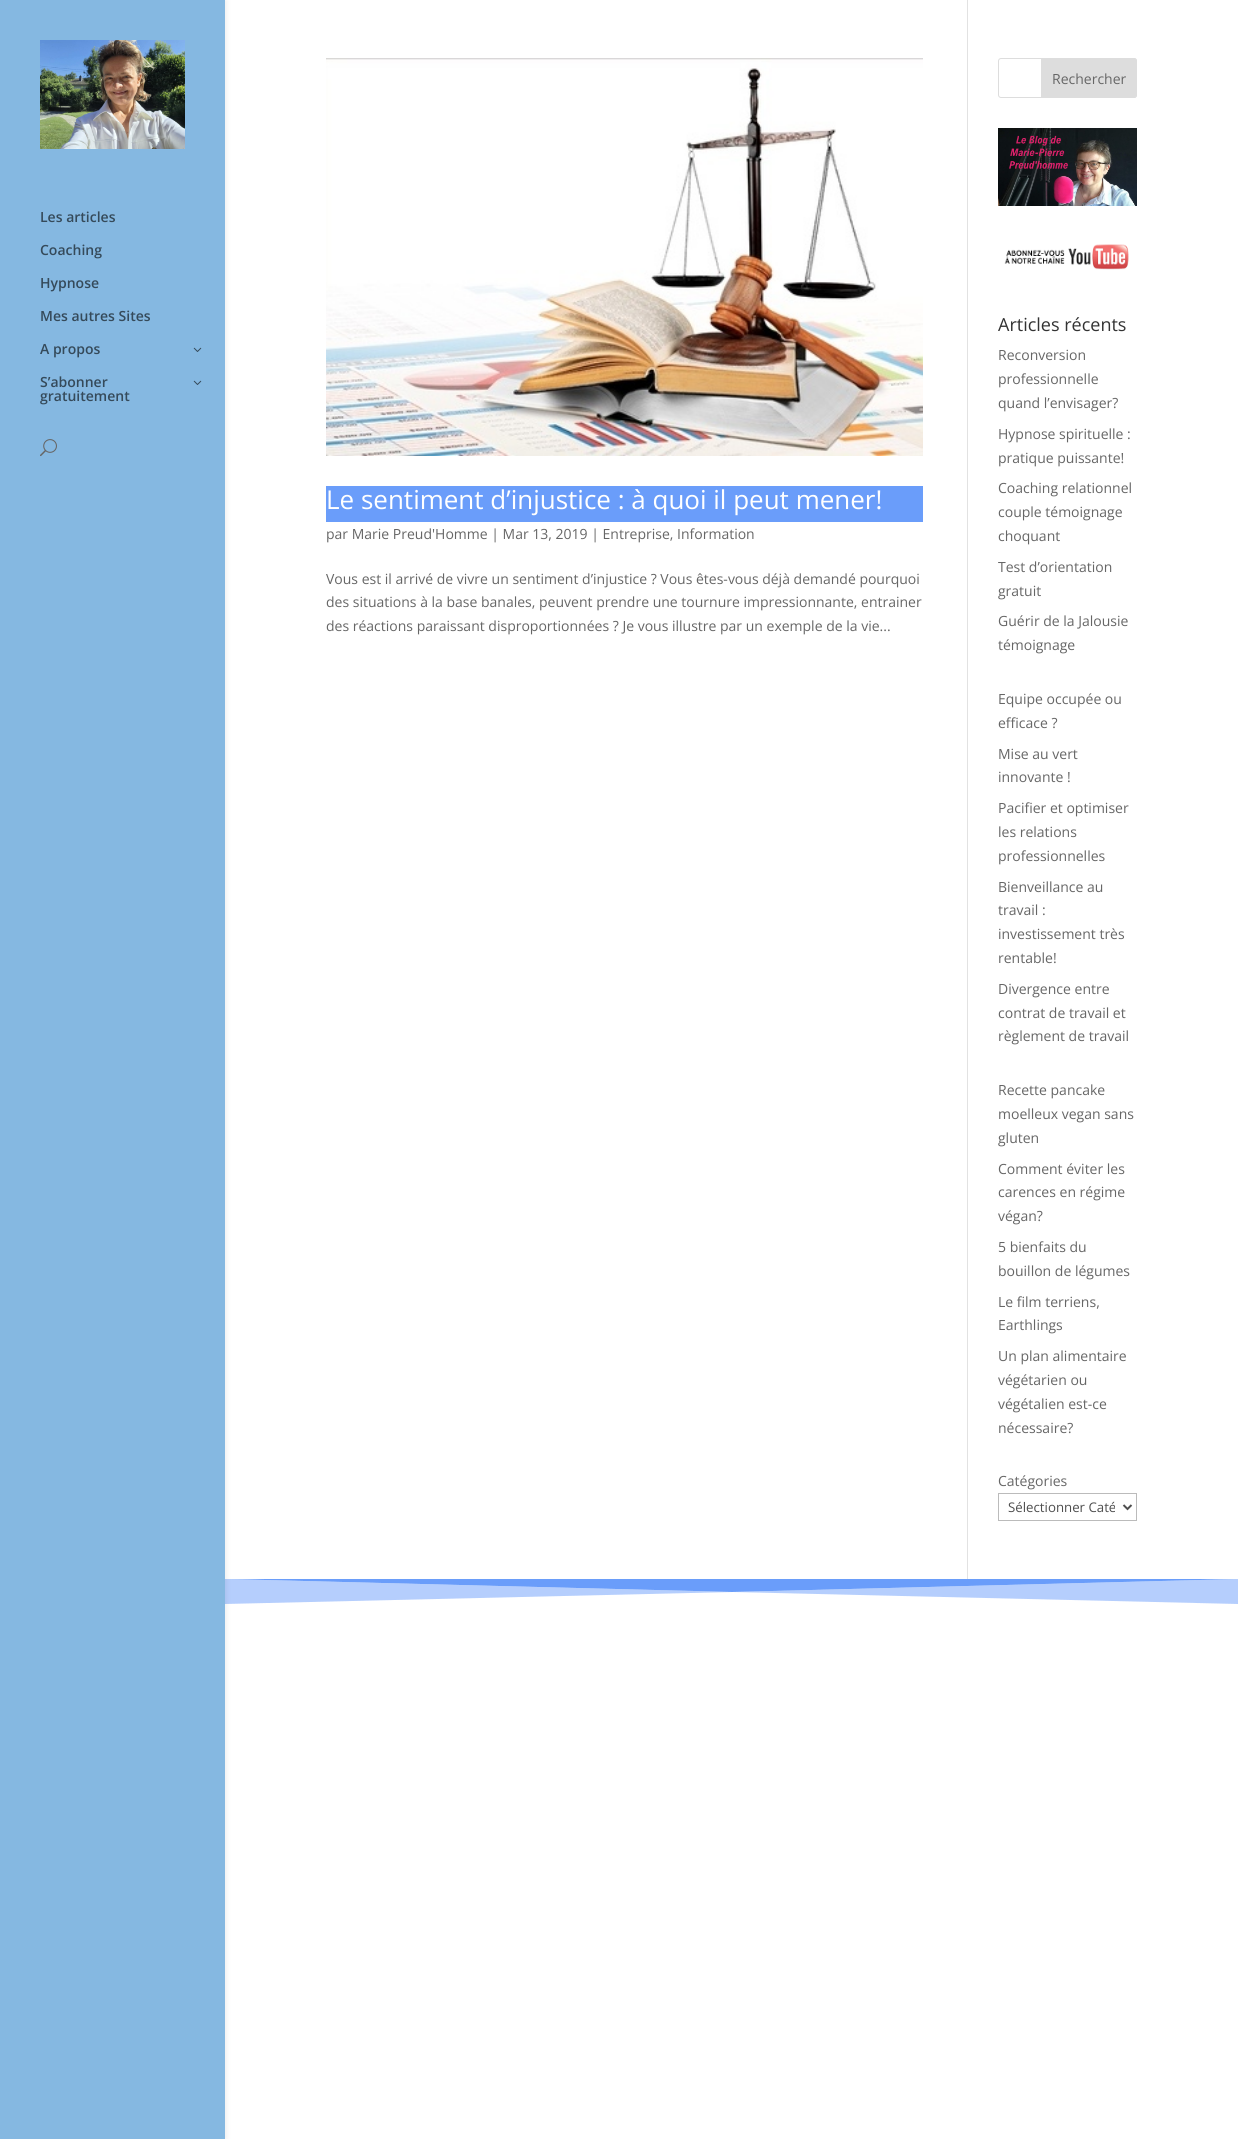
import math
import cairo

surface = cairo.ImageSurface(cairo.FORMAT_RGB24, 1238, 2139)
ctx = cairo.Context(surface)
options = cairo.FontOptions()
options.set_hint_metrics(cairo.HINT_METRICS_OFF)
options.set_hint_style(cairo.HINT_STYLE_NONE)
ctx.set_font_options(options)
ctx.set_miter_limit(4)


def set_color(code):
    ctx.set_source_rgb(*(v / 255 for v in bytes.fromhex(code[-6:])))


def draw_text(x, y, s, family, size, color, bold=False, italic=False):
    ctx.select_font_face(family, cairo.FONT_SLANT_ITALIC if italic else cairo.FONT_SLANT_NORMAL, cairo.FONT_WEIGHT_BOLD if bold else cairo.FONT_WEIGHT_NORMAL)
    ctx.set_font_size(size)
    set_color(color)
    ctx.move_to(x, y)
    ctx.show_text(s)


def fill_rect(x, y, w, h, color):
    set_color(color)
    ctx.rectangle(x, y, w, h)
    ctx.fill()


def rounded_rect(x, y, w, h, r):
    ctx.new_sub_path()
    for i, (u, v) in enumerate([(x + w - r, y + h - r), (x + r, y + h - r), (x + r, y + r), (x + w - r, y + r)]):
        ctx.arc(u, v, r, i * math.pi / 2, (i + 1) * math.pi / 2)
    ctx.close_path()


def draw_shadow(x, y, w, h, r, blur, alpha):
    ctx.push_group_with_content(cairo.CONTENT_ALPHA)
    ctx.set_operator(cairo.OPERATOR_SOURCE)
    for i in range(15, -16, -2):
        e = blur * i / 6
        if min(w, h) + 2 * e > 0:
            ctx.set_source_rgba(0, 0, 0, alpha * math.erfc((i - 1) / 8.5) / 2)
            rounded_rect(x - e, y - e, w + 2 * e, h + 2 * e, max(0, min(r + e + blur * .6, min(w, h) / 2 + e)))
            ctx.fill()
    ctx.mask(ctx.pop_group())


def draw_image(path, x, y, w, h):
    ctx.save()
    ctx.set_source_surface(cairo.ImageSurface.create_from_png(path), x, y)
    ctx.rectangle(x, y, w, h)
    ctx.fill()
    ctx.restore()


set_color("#ffffff")
ctx.paint()
set_color("#b5cefd")
ctx.new_path()
ctx.move_to(225, 1579)
ctx.line_to(732, 1592)
ctx.line_to(1238, 1579)
ctx.line_to(1238, 1604)
ctx.line_to(732, 1592)
ctx.line_to(225, 1604)
ctx.close_path()
ctx.fill()
set_color("#6a9dfa")
ctx.new_path()
ctx.move_to(225, 1579)
ctx.line_to(1238, 1579)
ctx.line_to(732, 1592)
ctx.close_path()
ctx.fill()
set_color("#000000")
draw_shadow(0, 0, 225, 2139, 0, 3.5, 0.1)
fill_rect(0, 0, 225, 2139, "#85b8e1")
draw_image("assets/img1.png", 40, 40, 145, 109)
draw_text(40, 222, "Les articles", "Open Sans SemiBold", 14, "#354a5a")
draw_text(40, 255, "Coaching", "Open Sans SemiBold", 14, "#354a5a")
draw_text(40, 288, "Hypnose", "Open Sans SemiBold", 14, "#354a5a")
draw_text(40, 321, "Mes autres Sites", "Open Sans SemiBold", 14, "#354a5a")
draw_text(40, 354, "A propos", "Open Sans SemiBold", 14, "#354a5a")
draw_image("assets/img2.png", 193, 347, 9, 5)
draw_text(40, 387, "S’abonner", "Open Sans SemiBold", 14, "#354a5a")
draw_image("assets/img2.png", 193, 380, 9, 5)
draw_text(40, 401, "gratuitement", "Open Sans SemiBold", 14, "#354a5a")
draw_image("assets/img3.png", 40, 439, 17, 18)
fill_rect(967, 0, 1, 1579, "#e2e2e2")
draw_image("assets/img4.png", 326, 58, 597, 398)
fill_rect(326, 486, 597, 36, "#6a9dfa")
draw_text(326, 509, "Le sentiment d’injustice : à quoi il peut mener!", "Open Sans", 26, "#ffffff")
draw_text(326, 539, "par Marie Preud'Homme | Mar 13, 2019 | Entreprise, Information", "Open Sans", 14, "#666666")
draw_text(326, 584, "Vous est il arrivé de vivre un sentiment d’injustice ? Vous êtes-vous déjà demandé pourquoi", "Open Sans", 14, "#666666")
draw_text(326, 607, "des situations à la base banales, peuvent prendre une tournure impressionnante, entrainer", "Open Sans", 14, "#666666")
draw_text(326, 631, "des réactions paraissant disproportionnées ? Je vous illustre par un exemple de la vie...", "Open Sans", 14, "#666666")
rounded_rect(998.5, 58.5, 138, 39, 2.5)
set_color("#dddddd")
ctx.set_line_width(1)
ctx.stroke()
ctx.new_path()
ctx.move_to(1041.5, 58.5)
ctx.line_to(1134, 58.5)
ctx.curve_to(1135.5, 58.5, 1136.5, 59.5, 1136.5, 61)
ctx.line_to(1136.5, 95)
ctx.curve_to(1136.5, 96.5, 1135.5, 97.5, 1134, 97.5)
ctx.line_to(1041.5, 97.5)
ctx.close_path()
ctx.fill_preserve()
ctx.stroke()
draw_text(1052, 84, "Rechercher", "Open Sans", 14, "#666666")
draw_image("assets/img5.png", 998, 128, 139, 78)
draw_image("assets/img6.png", 1004, 244, 125, 26)
draw_text(998, 331, "Articles récents", "Open Sans", 18, "#333333")
draw_text(998, 360, "Reconversion", "Open Sans", 14, "#666666")
draw_text(998, 384, "professionnelle", "Open Sans", 14, "#666666")
draw_text(998, 408, "quand l’envisager?", "Open Sans", 14, "#666666")
draw_text(998, 439, "Hypnose spirituelle :", "Open Sans", 14, "#666666")
draw_text(998, 463, "pratique puissante!", "Open Sans", 14, "#666666")
draw_text(998, 493, "Coaching relationnel", "Open Sans", 14, "#666666")
draw_text(998, 517, "couple témoignage", "Open Sans", 14, "#666666")
draw_text(998, 541, "choquant", "Open Sans", 14, "#666666")
draw_text(998, 572, "Test d’orientation", "Open Sans", 14, "#666666")
draw_text(998, 596, "gratuit", "Open Sans", 14, "#666666")
draw_text(998, 626, "Guérir de la Jalousie", "Open Sans", 14, "#666666")
draw_text(998, 650, "témoignage", "Open Sans", 14, "#666666")
draw_text(998, 704, "Equipe occupée ou", "Open Sans", 14, "#666666")
draw_text(998, 728, "efficace ?", "Open Sans", 14, "#666666")
draw_text(998, 759, "Mise au vert", "Open Sans", 14, "#666666")
draw_text(998, 782, "innovante !", "Open Sans", 14, "#666666")
draw_text(998, 813, "Pacifier et optimiser", "Open Sans", 14, "#666666")
draw_text(998, 837, "les relations", "Open Sans", 14, "#666666")
draw_text(998, 861, "professionnelles", "Open Sans", 14, "#666666")
draw_text(998, 892, "Bienveillance au", "Open Sans", 14, "#666666")
draw_text(998, 915, "travail :", "Open Sans", 14, "#666666")
draw_text(998, 939, "investissement très", "Open Sans", 14, "#666666")
draw_text(998, 963, "rentable!", "Open Sans", 14, "#666666")
draw_text(998, 994, "Divergence entre", "Open Sans", 14, "#666666")
draw_text(998, 1018, "contrat de travail et", "Open Sans", 14, "#666666")
draw_text(998, 1041, "règlement de travail", "Open Sans", 14, "#666666")
draw_text(998, 1095, "Recette pancake", "Open Sans", 14, "#666666")
draw_text(998, 1119, "moelleux vegan sans", "Open Sans", 14, "#666666")
draw_text(998, 1143, "gluten", "Open Sans", 14, "#666666")
draw_text(998, 1174, "Comment éviter les", "Open Sans", 14, "#666666")
draw_text(998, 1197, "carences en régime", "Open Sans", 14, "#666666")
draw_text(998, 1221, "végan?", "Open Sans", 14, "#666666")
draw_text(998, 1252, "5 bienfaits du", "Open Sans", 14, "#666666")
draw_text(998, 1276, "bouillon de légumes", "Open Sans", 14, "#666666")
draw_text(998, 1307, "Le film terriens,", "Open Sans", 14, "#666666")
draw_text(998, 1330, "Earthlings", "Open Sans", 14, "#666666")
draw_text(998, 1361, "Un plan alimentaire", "Open Sans", 14, "#666666")
draw_text(998, 1385, "végétarien ou", "Open Sans", 14, "#666666")
draw_text(998, 1409, "végétalien est-ce", "Open Sans", 14, "#666666")
draw_text(998, 1433, "nécessaire?", "Open Sans", 14, "#666666")
draw_text(998, 1486, "Catégories", "Open Sans", 14, "#666666")
ctx.rectangle(998.5, 1493.5, 138, 27)
set_color("#bbbbbb")
ctx.stroke()
ctx.new_path()
ctx.move_to(1123.5, 1505)
ctx.line_to(1127.5, 1509)
ctx.line_to(1131.5, 1505)
set_color("#4e4e4e")
ctx.set_line_width(2)
ctx.stroke()
ctx.save()
ctx.rectangle(1008, 1497, 107, 20)
ctx.clip()
draw_text(1008, 1512, "Sélectionner Caté", "Open Sans", 13.25, "#4e4e4e")
ctx.restore()
surface.write_to_png("output.png")
